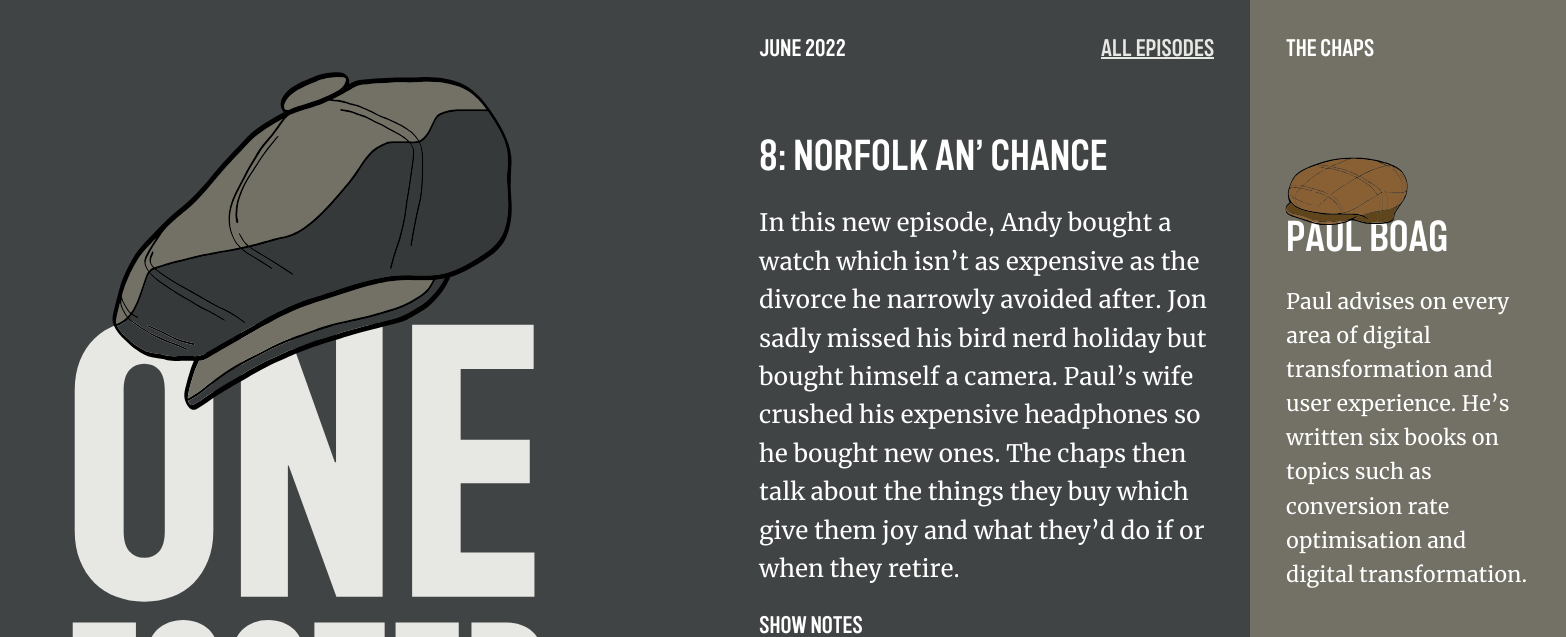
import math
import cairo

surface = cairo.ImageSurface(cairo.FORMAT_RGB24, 1566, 637)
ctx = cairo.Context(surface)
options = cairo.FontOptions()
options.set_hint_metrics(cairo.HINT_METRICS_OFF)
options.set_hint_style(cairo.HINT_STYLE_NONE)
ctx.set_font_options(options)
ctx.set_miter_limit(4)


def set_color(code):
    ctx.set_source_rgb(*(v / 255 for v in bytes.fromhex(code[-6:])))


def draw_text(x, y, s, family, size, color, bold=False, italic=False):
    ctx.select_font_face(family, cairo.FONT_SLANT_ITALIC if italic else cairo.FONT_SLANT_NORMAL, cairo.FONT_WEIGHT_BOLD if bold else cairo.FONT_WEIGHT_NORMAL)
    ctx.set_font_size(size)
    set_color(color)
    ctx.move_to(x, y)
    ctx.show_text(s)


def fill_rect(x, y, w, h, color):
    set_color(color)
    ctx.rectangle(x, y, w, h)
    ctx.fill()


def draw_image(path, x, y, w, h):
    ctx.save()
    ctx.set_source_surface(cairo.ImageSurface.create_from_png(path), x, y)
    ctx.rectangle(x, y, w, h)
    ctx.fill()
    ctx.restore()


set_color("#414445")
ctx.paint()
draw_image("assets/img1.png", 72, 72, 465, 565)
draw_text(759, 56, "JUNE 2022", "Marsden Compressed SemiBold", 24, "#ffffff")
draw_text(1101, 56, "ALL EPISODES", "Marsden Compressed SemiBold", 24, "#e7e7e4")
fill_rect(1101, 57, 113, 2, "#e7e7e4")
draw_text(759, 170, "8: NORFOLK AN’ CHANCE", "Marsden Compressed SemiBold", 43.25, "#ffffff")
draw_text(759, 231, "In this new episode, Andy bought a", "Merriweather", 24, "#ffffff")
draw_text(759, 270, "watch which isn’t as expensive as the", "Merriweather", 24, "#ffffff")
draw_text(759, 308, "divorce he narrowly avoided after. Jon", "Merriweather", 24, "#ffffff")
draw_text(759, 347, "sadly missed his bird nerd holiday but", "Merriweather", 24, "#ffffff")
draw_text(759, 385, "bought himself a camera. Paul’s wife", "Merriweather", 24, "#ffffff")
draw_text(759, 423, "crushed his expensive headphones so", "Merriweather", 24, "#ffffff")
draw_text(759, 462, "he bought new ones. The chaps then", "Merriweather", 24, "#ffffff")
draw_text(759, 500, "talk about the things they buy which", "Merriweather", 24, "#ffffff")
draw_text(759, 539, "give them joy and what they’d do if or", "Merriweather", 24, "#ffffff")
draw_text(759, 577, "when they retire.", "Merriweather", 24, "#ffffff")
draw_text(759, 633, "SHOW NOTES", "Marsden Compressed SemiBold", 24, "#ffffff")
fill_rect(1250, 0, 316, 637, "#737166")
draw_text(1286, 56, "THE CHAPS", "Marsden Compressed SemiBold", 24, "#ffffff")
draw_text(1286, 251, "PAUL BOAG", "Marsden Compressed SemiBold", 43.25, "#ffffff")
draw_image("assets/img2.png", 1285, 157, 123, 68)
draw_text(1286, 309, "Paul advises on every", "Merriweather", 21.3, "#ffffff")
draw_text(1286, 343, "area of digital", "Merriweather", 21.3, "#ffffff")
draw_text(1286, 377, "transformation and", "Merriweather", 21.3, "#ffffff")
draw_text(1286, 411, "user experience. He’s", "Merriweather", 21.3, "#ffffff")
draw_text(1286, 445, "written six books on", "Merriweather", 21.3, "#ffffff")
draw_text(1286, 479, "topics such as", "Merriweather", 21.3, "#ffffff")
draw_text(1286, 514, "conversion rate", "Merriweather", 21.3, "#ffffff")
draw_text(1286, 548, "optimisation and", "Merriweather", 21.3, "#ffffff")
draw_text(1286, 582, "digital transformation.", "Merriweather", 21.3, "#ffffff")
surface.write_to_png("output.png")
